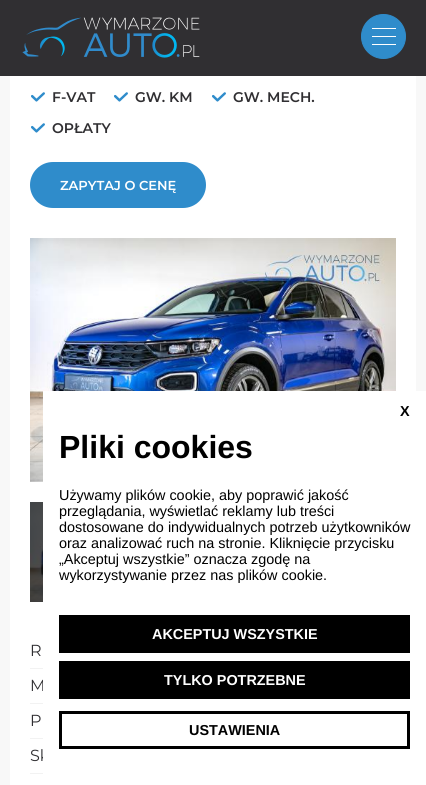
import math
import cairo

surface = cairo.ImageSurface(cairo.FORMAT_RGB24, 426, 785)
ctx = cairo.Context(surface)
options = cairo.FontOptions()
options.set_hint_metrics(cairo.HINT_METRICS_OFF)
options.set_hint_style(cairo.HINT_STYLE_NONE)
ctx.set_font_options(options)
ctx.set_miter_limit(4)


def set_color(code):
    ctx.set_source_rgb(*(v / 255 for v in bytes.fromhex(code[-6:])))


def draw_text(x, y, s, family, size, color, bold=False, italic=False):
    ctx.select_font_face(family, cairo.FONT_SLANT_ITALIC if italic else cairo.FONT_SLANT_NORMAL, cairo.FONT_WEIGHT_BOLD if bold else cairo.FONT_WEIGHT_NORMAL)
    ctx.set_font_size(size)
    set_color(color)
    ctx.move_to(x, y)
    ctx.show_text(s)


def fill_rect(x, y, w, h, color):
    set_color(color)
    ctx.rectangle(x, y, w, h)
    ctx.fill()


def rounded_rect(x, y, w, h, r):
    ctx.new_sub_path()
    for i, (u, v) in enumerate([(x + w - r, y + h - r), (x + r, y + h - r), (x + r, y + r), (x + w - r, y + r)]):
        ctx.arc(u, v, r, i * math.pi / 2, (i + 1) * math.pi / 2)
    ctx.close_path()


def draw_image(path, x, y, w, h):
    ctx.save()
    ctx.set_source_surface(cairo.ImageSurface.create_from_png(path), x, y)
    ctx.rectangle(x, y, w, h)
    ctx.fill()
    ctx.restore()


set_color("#f8f8f8")
ctx.paint()
fill_rect(0, 0, 426, 76, "#302f32")
draw_image("assets/img1.png", 22, 17, 178, 41)
set_color("#2f8ccb")
ctx.arc(383.5, 36.5, 22, 0, 2 * math.pi)
ctx.fill_preserve()
ctx.set_line_width(1)
ctx.stroke()
fill_rect(372, 36, 24, 1, "#ffffff")
fill_rect(372, 28, 24, 1, "#ffffff")
fill_rect(372, 44, 24, 1, "#ffffff")
fill_rect(10, 76, 406, 709, "#ffffff")
draw_image("assets/img2.png", 31, 92, 14, 10)
draw_text(52, 102, "F-VAT", "Montserrat SemiBold", 14, "#302f32")
draw_image("assets/img2.png", 114, 92, 14, 10)
draw_text(135, 102, "GW. KM", "Montserrat SemiBold", 14, "#302f32")
draw_image("assets/img2.png", 212, 92, 14, 10)
draw_text(233, 102, "GW. MECH.", "Montserrat SemiBold", 14, "#302f32")
draw_image("assets/img2.png", 31, 123, 14, 10)
draw_text(52, 133, "OPŁATY", "Montserrat SemiBold", 14, "#302f32")
set_color("#2f8ccb")
rounded_rect(30, 162, 176, 46, 23)
ctx.fill()
draw_text(60, 190, "ZAPYTAJ O CENĘ", "Montserrat SemiBold", 13, "#ffffff")
draw_image("assets/img3.png", 30, 238, 366, 244)
draw_image("assets/img4.png", 30, 502, 13, 100)
ctx.set_source_rgba(0, 0, 0, 0.7)
ctx.rectangle(30, 502, 13, 100)
ctx.fill()
fill_rect(30, 668, 13, 1, "#f2f2f2")
draw_text(30, 656, "R", "Montserrat", 16, "#302f32")
fill_rect(30, 703, 13, 1, "#f2f2f2")
draw_text(30, 691, "M", "Montserrat", 16, "#302f32")
fill_rect(30, 738, 13, 1, "#f2f2f2")
draw_text(30, 726, "P", "Montserrat", 16, "#302f32")
fill_rect(30, 773, 13, 1, "#f2f2f2")
draw_text(30, 761, "Sk", "Montserrat", 16, "#302f32")
fill_rect(43, 391, 383, 394, "#ffffff")
draw_text(400, 416, "X", "Liberation Sans", 14.4, "#000000", bold=True)
draw_text(59, 458, "Pliki cookies", "Liberation Sans", 32, "#000000", bold=True)
draw_text(59, 500, "Używamy plików cookie, aby poprawić jakość", "Liberation Sans", 14.4, "#000000")
draw_text(59, 516, "przeglądania, wyświetlać reklamy lub treści", "Liberation Sans", 14.4, "#000000")
draw_text(59, 532, "dostosowane do indywidualnych potrzeb użytkowników", "Liberation Sans", 14.4, "#000000")
draw_text(59, 548, "oraz analizować ruch na stronie. Kliknięcie przycisku", "Liberation Sans", 14.4, "#000000")
draw_text(59, 564, "„Akceptuj wszystkie” oznacza zgodę na", "Liberation Sans", 14.4, "#000000")
draw_text(59, 580, "wykorzystywanie przez nas plików cookie.", "Liberation Sans", 14.4, "#000000")
fill_rect(59, 615, 351, 38, "#000000")
draw_text(152, 639, "AKCEPTUJ WSZYSTKIE", "Liberation Sans", 14.4, "#ffffff", bold=True)
fill_rect(59, 661, 351, 38, "#000000")
draw_text(164, 685, "TYLKO POTRZEBNE", "Liberation Sans", 14.4, "#ffffff", bold=True)
ctx.rectangle(60.5, 712.5, 348, 35)
set_color("#000000")
ctx.set_line_width(3)
ctx.stroke()
draw_text(189, 735, "USTAWIENIA", "Liberation Sans", 14.4, "#000000", bold=True)
surface.write_to_png("output.png")
